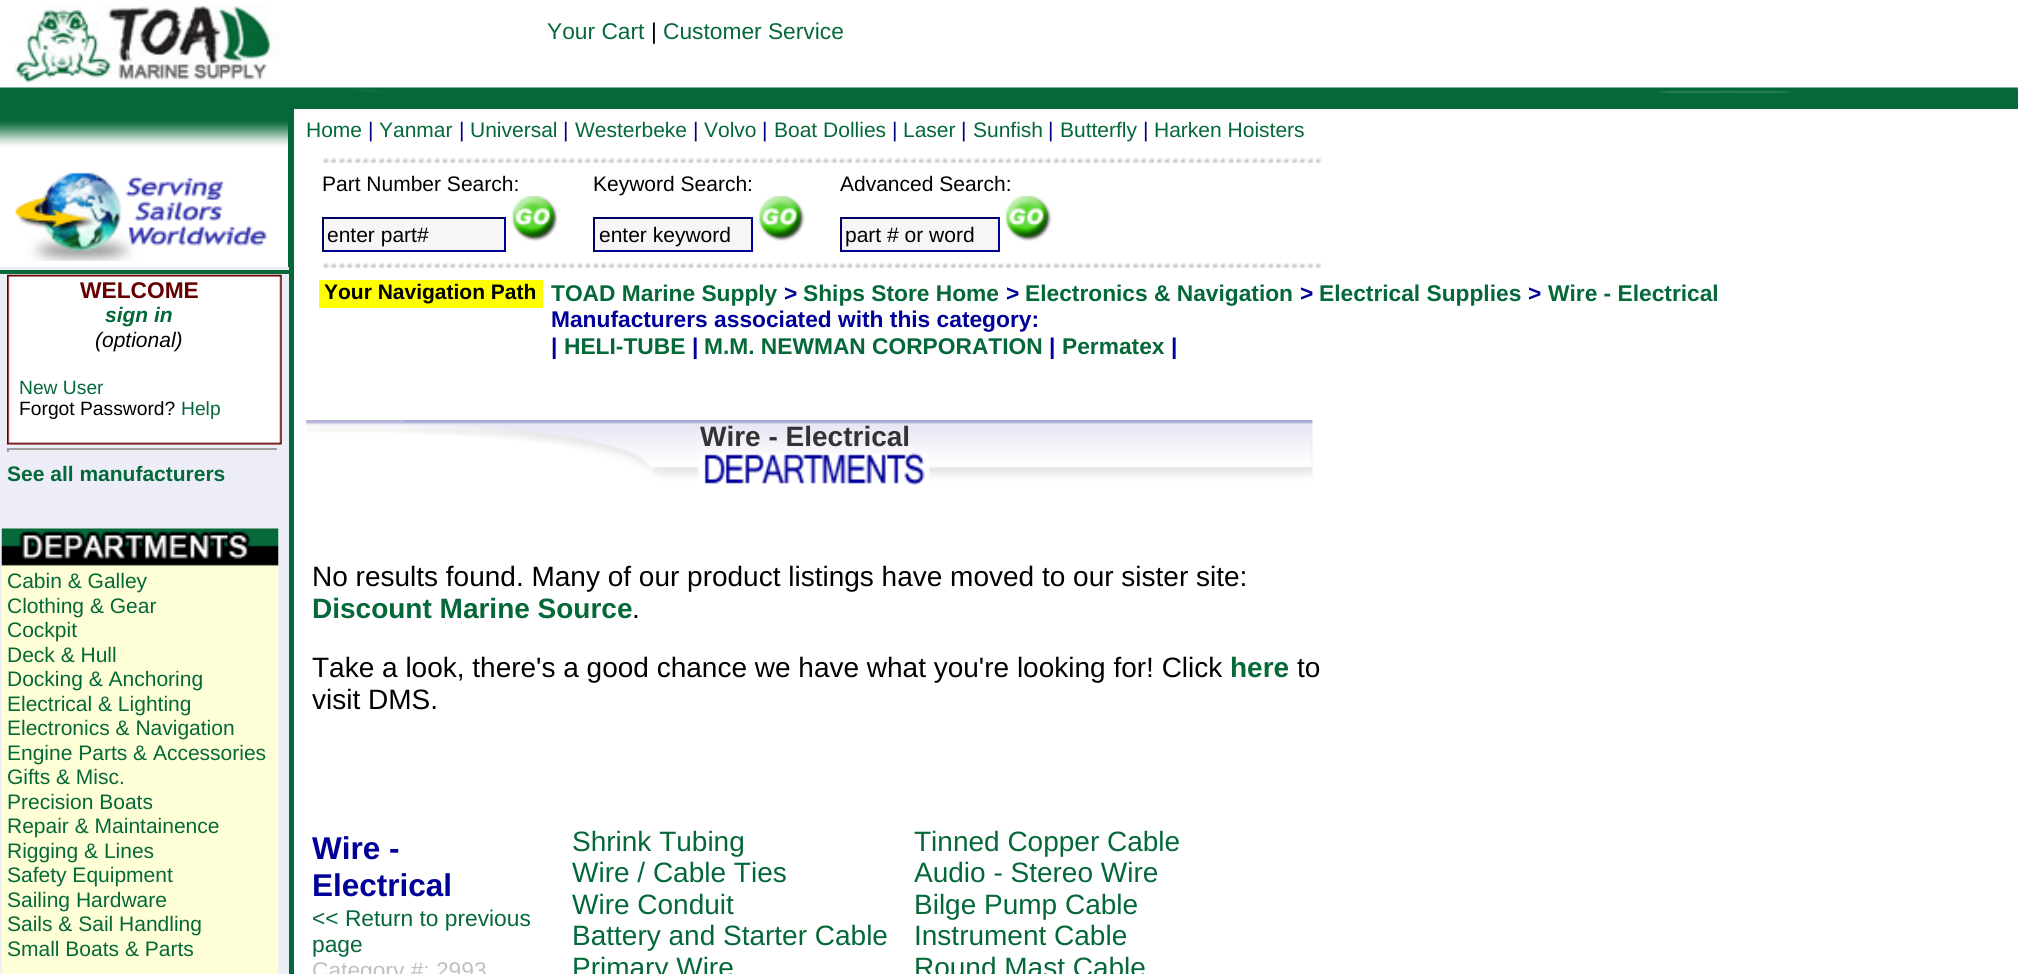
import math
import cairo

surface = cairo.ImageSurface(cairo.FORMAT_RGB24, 2021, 974)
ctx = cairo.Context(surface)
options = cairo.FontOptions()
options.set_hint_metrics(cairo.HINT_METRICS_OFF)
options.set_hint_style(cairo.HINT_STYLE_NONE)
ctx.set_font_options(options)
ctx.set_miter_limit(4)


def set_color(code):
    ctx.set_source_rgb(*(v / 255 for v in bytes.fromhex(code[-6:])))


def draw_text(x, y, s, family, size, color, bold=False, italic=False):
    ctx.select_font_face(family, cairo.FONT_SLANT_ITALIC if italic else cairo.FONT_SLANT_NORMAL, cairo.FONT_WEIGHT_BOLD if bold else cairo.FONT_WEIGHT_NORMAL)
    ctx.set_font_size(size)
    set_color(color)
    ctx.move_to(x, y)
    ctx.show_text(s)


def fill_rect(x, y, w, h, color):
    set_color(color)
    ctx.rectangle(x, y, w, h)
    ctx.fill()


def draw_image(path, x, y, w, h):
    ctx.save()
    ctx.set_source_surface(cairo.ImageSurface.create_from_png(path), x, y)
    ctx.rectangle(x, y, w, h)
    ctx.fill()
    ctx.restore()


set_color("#ffffff")
ctx.paint()
draw_image("assets/img1.png", 14, 5, 266, 78)
draw_text(547, 39, "Your Cart", "Liberation Sans", 22.75, "#056839")
draw_text(651, 39, "|", "Liberation Sans", 22.75, "#000000")
draw_text(663, 39, "Customer Service", "Liberation Sans", 22.75, "#056839")
fill_rect(0, 89, 2018, 20, "#056839")
draw_image("assets/img2.png", 0, 87, 2018, 6)
draw_image("assets/img3.png", 0, 109, 288, 38)
fill_rect(288, 109, 6, 865, "#056839")
draw_text(306, 137, "Home", "Liberation Sans", 21, "#056839")
draw_text(368, 137, "|", "Liberation Sans", 21, "#000080")
draw_text(379, 137, "Yanmar", "Liberation Sans", 21, "#056839")
draw_text(459, 137, "|", "Liberation Sans", 21, "#000080")
draw_text(470, 137, "Universal", "Liberation Sans", 21, "#056839")
draw_text(563, 137, "|", "Liberation Sans", 21, "#000080")
draw_text(575, 137, "Westerbeke", "Liberation Sans", 21, "#056839")
draw_text(693, 137, "|", "Liberation Sans", 21, "#000080")
draw_text(704, 137, "Volvo", "Liberation Sans", 21, "#056839")
draw_text(762, 137, "|", "Liberation Sans", 21, "#000080")
draw_text(774, 137, "Boat Dollies", "Liberation Sans", 21, "#056839")
draw_text(892, 137, "|", "Liberation Sans", 21, "#000080")
draw_text(903, 137, "Laser", "Liberation Sans", 21, "#056839")
draw_text(961, 137, "|", "Liberation Sans", 21, "#000080")
draw_text(973, 137, "Sunfish", "Liberation Sans", 21, "#056839")
draw_text(1048, 137, "|", "Liberation Sans", 21, "#000080")
draw_text(1060, 137, "Butterfly", "Liberation Sans", 21, "#056839")
draw_text(1143, 137, "|", "Liberation Sans", 21, "#000080")
draw_text(1154, 137, "Harken Hoisters", "Liberation Sans", 21, "#056839")
draw_image("assets/img4.png", 323, 157, 999, 6)
draw_image("assets/img4.png", 323, 262, 999, 6)
fill_rect(0, 267, 289, 707, "#ecedf7")
fill_rect(0, 270, 292, 4, "#056839")
draw_image("assets/img5.png", 7, 274, 275, 171)
draw_text(80, 298, "WELCOME", "Liberation Sans", 22.75, "#660000", bold=True)
draw_text(105, 322, "sign in", "Liberation Sans", 21, "#056839", bold=True, italic=True)
draw_text(95, 347, "(optional)", "Liberation Sans", 21, "#000000", italic=True)
draw_text(19, 394, "New User", "Liberation Sans", 19.25, "#056839")
draw_text(19, 415, "Forgot Password?", "Liberation Sans", 19.25, "#000000")
draw_text(181, 415, "Help", "Liberation Sans", 19.25, "#056839")
fill_rect(319, 280, 224, 28, "#ffff00")
draw_text(324, 299, "Your Navigation Path", "Liberation Sans", 21, "#000000", bold=True)
draw_text(551, 301, "TOAD Marine Supply", "Liberation Sans", 22.75, "#056839", bold=True)
draw_text(784, 301, ">", "Liberation Sans", 22.75, "#000099", bold=True)
draw_text(803, 301, "Ships Store Home", "Liberation Sans", 22.75, "#056839", bold=True)
draw_text(1006, 301, ">", "Liberation Sans", 22.75, "#000099", bold=True)
draw_text(1025, 301, "Electronics & Navigation", "Liberation Sans", 22.75, "#056839", bold=True)
draw_text(1300, 301, ">", "Liberation Sans", 22.75, "#000099", bold=True)
draw_text(1319, 301, "Electrical Supplies", "Liberation Sans", 22.75, "#056839", bold=True)
draw_text(1528, 301, ">", "Liberation Sans", 22.75, "#000099", bold=True)
draw_text(1548, 301, "Wire - Electrical", "Liberation Sans", 22.75, "#056839", bold=True)
draw_text(551, 327, "Manufacturers associated with this category:", "Liberation Sans", 22.75, "#000099", bold=True)
draw_text(551, 354, "|", "Liberation Sans", 22.75, "#000099", bold=True)
draw_text(564, 354, "HELI-TUBE", "Liberation Sans", 22.75, "#056839", bold=True)
draw_text(692, 354, "|", "Liberation Sans", 22.75, "#000099", bold=True)
draw_text(704, 354, "M.M. NEWMAN CORPORATION", "Liberation Sans", 22.75, "#056839", bold=True)
draw_text(1049, 354, "|", "Liberation Sans", 22.75, "#000099", bold=True)
draw_text(1062, 354, "Permatex", "Liberation Sans", 22.75, "#056839", bold=True)
draw_text(1171, 354, "|", "Liberation Sans", 22.75, "#000099", bold=True)
fill_rect(7, 448, 271, 2, "#9f9f9f")
fill_rect(277, 448, 2, 4, "#eeeeee")
fill_rect(7, 450, 271, 2, "#eeeeee")
fill_rect(7, 448, 2, 4, "#9f9f9f")
draw_text(7, 481, "See all manufacturers", "Liberation Sans", 21, "#056839", bold=True)
draw_image("assets/img6.png", 1, 528, 278, 446)
draw_text(7, 588, "Cabin & Galley", "Liberation Sans", 21, "#056839")
draw_text(7, 613, "Clothing & Gear", "Liberation Sans", 21, "#056839")
draw_text(7, 637, "Cockpit", "Liberation Sans", 21, "#056839")
draw_text(7, 662, "Deck & Hull", "Liberation Sans", 21, "#056839")
draw_text(7, 686, "Docking & Anchoring", "Liberation Sans", 21, "#056839")
draw_text(7, 711, "Electrical & Lighting", "Liberation Sans", 21, "#056839")
draw_text(7, 735, "Electronics & Navigation", "Liberation Sans", 21, "#056839")
draw_text(7, 760, "Engine Parts & Accessories", "Liberation Sans", 21, "#056839")
draw_text(7, 784, "Gifts & Misc.", "Liberation Sans", 21, "#056839")
draw_text(7, 809, "Precision Boats", "Liberation Sans", 21, "#056839")
draw_text(7, 833, "Repair & Maintainence", "Liberation Sans", 21, "#056839")
draw_text(7, 858, "Rigging & Lines", "Liberation Sans", 21, "#056839")
draw_text(7, 882, "Safety Equipment", "Liberation Sans", 21, "#056839")
draw_text(7, 907, "Sailing Hardware", "Liberation Sans", 21, "#056839")
draw_text(7, 931, "Sails & Sail Handling", "Liberation Sans", 21, "#056839")
draw_text(7, 956, "Small Boats & Parts", "Liberation Sans", 21, "#056839")
draw_image("assets/img7.png", 15, 172, 252, 89)
draw_text(322, 191, "Part Number Search:", "Liberation Sans", 21, "#000000")
fill_rect(324, 219, 180, 31, "#f7f5f5")
fill_rect(322, 217, 184, 2, "#000066")
fill_rect(504, 217, 2, 35, "#000099")
fill_rect(322, 250, 184, 2, "#000099")
fill_rect(322, 217, 2, 35, "#000066")
draw_text(327, 242, "enter part#", "Liberation Sans", 21, "#000000")
draw_image("assets/img8.png", 512, 196, 46, 46)
draw_text(593, 191, "Keyword Search:", "Liberation Sans", 21, "#000000")
fill_rect(595, 219, 156, 31, "#f7f5f5")
fill_rect(593, 217, 160, 2, "#000066")
fill_rect(751, 217, 2, 35, "#000099")
fill_rect(593, 250, 160, 2, "#000099")
fill_rect(593, 217, 2, 35, "#000066")
draw_text(599, 242, "enter keyword", "Liberation Sans", 21, "#000000")
draw_image("assets/img9.png", 759, 196, 46, 46)
draw_text(840, 191, "Advanced Search:", "Liberation Sans", 21, "#000000")
fill_rect(842, 219, 156, 31, "#f7f5f5")
fill_rect(840, 217, 159, 2, "#000066")
fill_rect(998, 217, 2, 35, "#000099")
fill_rect(840, 250, 159, 2, "#000099")
fill_rect(840, 217, 2, 35, "#000066")
draw_text(845, 242, "part # or word", "Liberation Sans", 21, "#000000")
draw_image("assets/img10.png", 1006, 196, 46, 46)
draw_image("assets/img11.png", 306, 420, 1007, 65)
draw_text(700, 446, "Wire - Electrical", "Liberation Sans", 28, "#333333", bold=True)
draw_text(312, 586, "No results found. Many of our product listings have moved to our sister site:", "Liberation Sans", 28, "#000000")
draw_text(312, 618, "Discount Marine Source", "Liberation Sans", 28, "#056839", bold=True)
draw_text(632, 618, ".", "Liberation Sans", 28, "#000000")
draw_text(312, 677, "Take a look, there's a good chance we have what you're looking for! Click", "Liberation Sans", 28, "#000000")
draw_text(1230, 677, "here", "Liberation Sans", 28, "#056839", bold=True)
draw_text(1297, 677, "to", "Liberation Sans", 28, "#000000")
draw_text(312, 709, "visit DMS.", "Liberation Sans", 28, "#000000")
draw_text(312, 859, "Wire -", "Liberation Sans", 31.5, "#000099", bold=True)
draw_text(312, 896, "Electrical", "Liberation Sans", 31.5, "#000099", bold=True)
draw_text(312, 926, "<< Return to previous", "Liberation Sans", 22.75, "#056839")
draw_text(312, 952, "page", "Liberation Sans", 22.75, "#056839")
draw_text(312, 978, "Category #: 2993", "Liberation Sans", 22.75, "#c0c0c0")
draw_text(572, 851, "Shrink Tubing", "Liberation Sans", 28, "#056839")
draw_text(572, 882, "Wire / Cable Ties", "Liberation Sans", 28, "#056839")
draw_text(572, 914, "Wire Conduit", "Liberation Sans", 28, "#056839")
draw_text(572, 945, "Battery and Starter Cable", "Liberation Sans", 28, "#056839")
draw_text(572, 977, "Primary Wire", "Liberation Sans", 28, "#056839")
draw_text(914, 851, "Tinned Copper Cable", "Liberation Sans", 28, "#056839")
draw_text(914, 882, "Audio - Stereo Wire", "Liberation Sans", 28, "#056839")
draw_text(914, 914, "Bilge Pump Cable", "Liberation Sans", 28, "#056839")
draw_text(914, 945, "Instrument Cable", "Liberation Sans", 28, "#056839")
draw_text(914, 977, "Round Mast Cable", "Liberation Sans", 28, "#056839")
surface.write_to_png("output.png")
